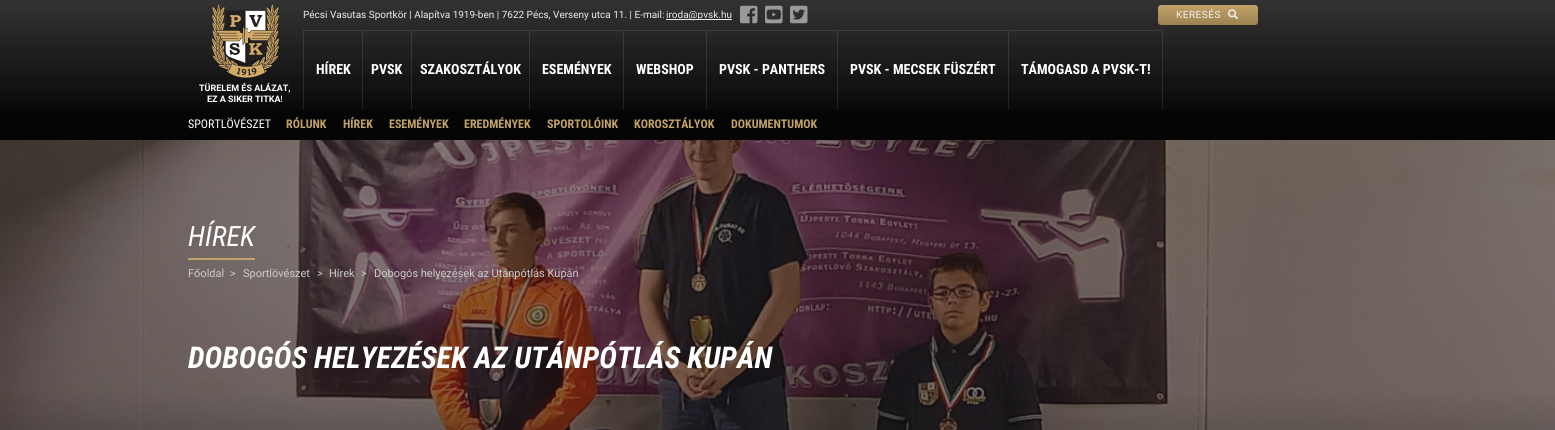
import math
import cairo

surface = cairo.ImageSurface(cairo.FORMAT_RGB24, 1555, 430)
ctx = cairo.Context(surface)
options = cairo.FontOptions()
options.set_hint_metrics(cairo.HINT_METRICS_OFF)
options.set_hint_style(cairo.HINT_STYLE_NONE)
ctx.set_font_options(options)
ctx.set_miter_limit(4)


def set_color(code):
    ctx.set_source_rgb(*(v / 255 for v in bytes.fromhex(code[-6:])))


def draw_text(x, y, s, family, size, color, bold=False, italic=False):
    ctx.select_font_face(family, cairo.FONT_SLANT_ITALIC if italic else cairo.FONT_SLANT_NORMAL, cairo.FONT_WEIGHT_BOLD if bold else cairo.FONT_WEIGHT_NORMAL)
    ctx.set_font_size(size)
    set_color(color)
    ctx.move_to(x, y)
    ctx.show_text(s)


def draw_spaced(x, y, s, letter, word):
    ctx.move_to(x, y)
    for ch in s:
        ctx.show_text(ch)
        ctx.rel_move_to(letter + word * (ch == ' '), 0)


def fill_rect(x, y, w, h, color):
    set_color(color)
    ctx.rectangle(x, y, w, h)
    ctx.fill()


def rounded_rect(x, y, w, h, r):
    ctx.new_sub_path()
    for i, (u, v) in enumerate([(x + w - r, y + h - r), (x + r, y + h - r), (x + r, y + r), (x + w - r, y + r)]):
        ctx.arc(u, v, r, i * math.pi / 2, (i + 1) * math.pi / 2)
    ctx.close_path()


def draw_image(path, x, y, w, h):
    ctx.save()
    ctx.set_source_surface(cairo.ImageSurface.create_from_png(path), x, y)
    ctx.rectangle(x, y, w, h)
    ctx.fill()
    ctx.restore()


set_color("#ffffff")
ctx.paint()
gradient = cairo.LinearGradient(778, 0, 778, 110)
gradient.add_color_stop_rgba(0, 0.2, 0.2, 0.2, 1)
gradient.add_color_stop_rgba(1, 0.035, 0.035, 0.035, 1)
ctx.set_source(gradient)
ctx.rectangle(0, 0, 1555, 110)
ctx.fill()
draw_text(303, 18, "Pécsi Vasutas Sportkör | Alapítva 1919-ben | 7622 Pécs, Verseny utca 11. | E-mail:", "Roboto", 10, "#eeeeee")
fill_rect(666, 19, 66, 1, "#eeeeee")
draw_text(666, 18, "iroda@pvsk.hu", "Roboto", 10, "#eeeeee")
draw_image("assets/img1.png", 740, 5, 18, 19)
draw_image("assets/img2.png", 765, 5, 18, 19)
draw_image("assets/img3.png", 790, 5, 18, 19)
gradient = cairo.LinearGradient(1208, 5, 1208, 25)
gradient.add_color_stop_rgba(0, 0.757, 0.631, 0.408, 1)
gradient.add_color_stop_rgba(1, 0.612, 0.51, 0.318, 1)
ctx.set_source(gradient)
rounded_rect(1158, 5, 100, 20, 3)
ctx.fill()
set_color("#eeeeee")
draw_spaced(1176, 18, "KERESÉS", 0.5, 0)
draw_image("assets/img4.png", 1228, 9, 10, 11)
set_color("#3d3d3d")
ctx.new_path()
ctx.move_to(303, 30)
ctx.line_to(362, 30)
ctx.line_to(362, 31)
ctx.line_to(304, 31)
ctx.close_path()
ctx.fill()
ctx.set_source_rgba(1, 1, 1, 0.1)
ctx.new_path()
ctx.move_to(303, 110)
ctx.line_to(303, 30)
ctx.line_to(304, 31)
ctx.line_to(304, 110)
ctx.close_path()
ctx.fill()
draw_text(316, 74, "HÍREK", "Roboto Condensed", 14, "#ffffff", bold=True)
set_color("#3d3d3d")
ctx.new_path()
ctx.move_to(362, 30)
ctx.line_to(411, 30)
ctx.line_to(411, 31)
ctx.line_to(363, 31)
ctx.close_path()
ctx.fill()
ctx.set_source_rgba(1, 1, 1, 0.1)
ctx.new_path()
ctx.move_to(362, 110)
ctx.line_to(362, 30)
ctx.line_to(363, 31)
ctx.line_to(363, 110)
ctx.close_path()
ctx.fill()
draw_text(371, 74, "PVSK", "Roboto Condensed", 14, "#ffffff", bold=True)
set_color("#3d3d3d")
ctx.new_path()
ctx.move_to(411, 30)
ctx.line_to(529, 30)
ctx.line_to(529, 31)
ctx.line_to(412, 31)
ctx.close_path()
ctx.fill()
ctx.set_source_rgba(1, 1, 1, 0.1)
ctx.new_path()
ctx.move_to(411, 110)
ctx.line_to(411, 30)
ctx.line_to(412, 31)
ctx.line_to(412, 110)
ctx.close_path()
ctx.fill()
draw_text(420, 74, "SZAKOSZTÁLYOK", "Roboto Condensed", 14, "#ffffff", bold=True)
set_color("#3d3d3d")
ctx.new_path()
ctx.move_to(529, 30)
ctx.line_to(623, 30)
ctx.line_to(623, 31)
ctx.line_to(530, 31)
ctx.close_path()
ctx.fill()
ctx.set_source_rgba(1, 1, 1, 0.1)
ctx.new_path()
ctx.move_to(529, 110)
ctx.line_to(529, 30)
ctx.line_to(530, 31)
ctx.line_to(530, 110)
ctx.close_path()
ctx.fill()
draw_text(542, 74, "ESEMÉNYEK", "Roboto Condensed", 14, "#ffffff", bold=True)
set_color("#3d3d3d")
ctx.new_path()
ctx.move_to(623, 30)
ctx.line_to(706, 30)
ctx.line_to(706, 31)
ctx.line_to(624, 31)
ctx.close_path()
ctx.fill()
ctx.set_source_rgba(1, 1, 1, 0.1)
ctx.new_path()
ctx.move_to(623, 110)
ctx.line_to(623, 30)
ctx.line_to(624, 31)
ctx.line_to(624, 110)
ctx.close_path()
ctx.fill()
draw_text(636, 74, "WEBSHOP", "Roboto Condensed", 14, "#ffffff", bold=True)
set_color("#3d3d3d")
ctx.new_path()
ctx.move_to(706, 30)
ctx.line_to(837, 30)
ctx.line_to(837, 31)
ctx.line_to(707, 31)
ctx.close_path()
ctx.fill()
ctx.set_source_rgba(1, 1, 1, 0.1)
ctx.new_path()
ctx.move_to(706, 110)
ctx.line_to(706, 30)
ctx.line_to(707, 31)
ctx.line_to(707, 110)
ctx.close_path()
ctx.fill()
draw_text(719, 74, "PVSK - PANTHERS", "Roboto Condensed", 14, "#ffffff", bold=True)
set_color("#3d3d3d")
ctx.new_path()
ctx.move_to(837, 30)
ctx.line_to(1008, 30)
ctx.line_to(1008, 31)
ctx.line_to(838, 31)
ctx.close_path()
ctx.fill()
ctx.set_source_rgba(1, 1, 1, 0.1)
ctx.new_path()
ctx.move_to(837, 110)
ctx.line_to(837, 30)
ctx.line_to(838, 31)
ctx.line_to(838, 110)
ctx.close_path()
ctx.fill()
draw_text(850, 74, "PVSK - MECSEK FÜSZÉRT", "Roboto Condensed", 14, "#ffffff", bold=True)
set_color("#3d3d3d")
ctx.new_path()
ctx.move_to(1008, 30)
ctx.line_to(1163, 30)
ctx.line_to(1162, 31)
ctx.line_to(1009, 31)
ctx.close_path()
ctx.fill()
ctx.set_source_rgba(1, 1, 1, 0.1)
ctx.new_path()
ctx.move_to(1163, 30)
ctx.line_to(1163, 110)
ctx.line_to(1162, 110)
ctx.line_to(1162, 31)
ctx.close_path()
ctx.fill()
ctx.new_path()
ctx.move_to(1008, 110)
ctx.line_to(1008, 30)
ctx.line_to(1009, 31)
ctx.line_to(1009, 110)
ctx.close_path()
ctx.fill()
draw_text(1021, 74, "TÁMOGASD A PVSK-T!", "Roboto Condensed", 14, "#ffffff", bold=True)
fill_rect(0, 110, 1555, 30, "#050505")
draw_text(188, 128, "SPORTLÖVÉSZET", "Roboto Condensed", 12, "#ffffff")
draw_text(286, 128, "RÓLUNK", "Roboto Condensed", 12, "#c2a266", bold=True)
draw_text(343, 128, "HÍREK", "Roboto Condensed", 12, "#c2a266", bold=True)
draw_text(389, 128, "ESEMÉNYEK", "Roboto Condensed", 12, "#c2a266", bold=True)
draw_text(464, 128, "EREDMÉNYEK", "Roboto Condensed", 12, "#c2a266", bold=True)
draw_text(547, 128, "SPORTOLÓINK", "Roboto Condensed", 12, "#c2a266", bold=True)
draw_text(634, 128, "KOROSZTÁLYOK", "Roboto Condensed", 12, "#c2a266", bold=True)
draw_text(731, 128, "DOKUMENTUMOK", "Roboto Condensed", 12, "#c2a266", bold=True)
draw_image("assets/img5.png", 212, 3, 68, 75)
draw_text(199, 91, "TÜRELEM ÉS ALÁZAT,", "Roboto", 9, "#ffffff", bold=True)
draw_text(207, 102, "EZ A SIKER TITKA!", "Roboto", 9, "#ffffff", bold=True)
draw_image("assets/img6.png", 0, 140, 1555, 290)
fill_rect(188, 258, 67, 2, "#c2a266")
draw_text(188, 246, "HÍREK", "Roboto Condensed", 28, "#ffffff", italic=True)
draw_text(188, 277, "Főoldal", "Roboto", 11, "#cccccc")
draw_text(230, 277, ">", "Roboto", 11, "#cccccc")
draw_text(243, 277, "Sportlövészet", "Roboto", 11, "#cccccc")
draw_text(317, 277, ">", "Roboto", 11, "#cccccc")
draw_text(329, 277, "Hírek", "Roboto", 11, "#cccccc")
draw_text(361, 277, ">", "Roboto", 11, "#cccccc")
draw_text(374, 277, "Dobogós helyezések az Utánpótlás Kupán", "Roboto", 11, "#cccccc")
draw_text(188, 368, "DOBOGÓS HELYEZÉSEK AZ UTÁNPÓTLÁS KUPÁN", "Roboto Condensed", 30, "#ffffff", bold=True, italic=True)
surface.write_to_png("output.png")
